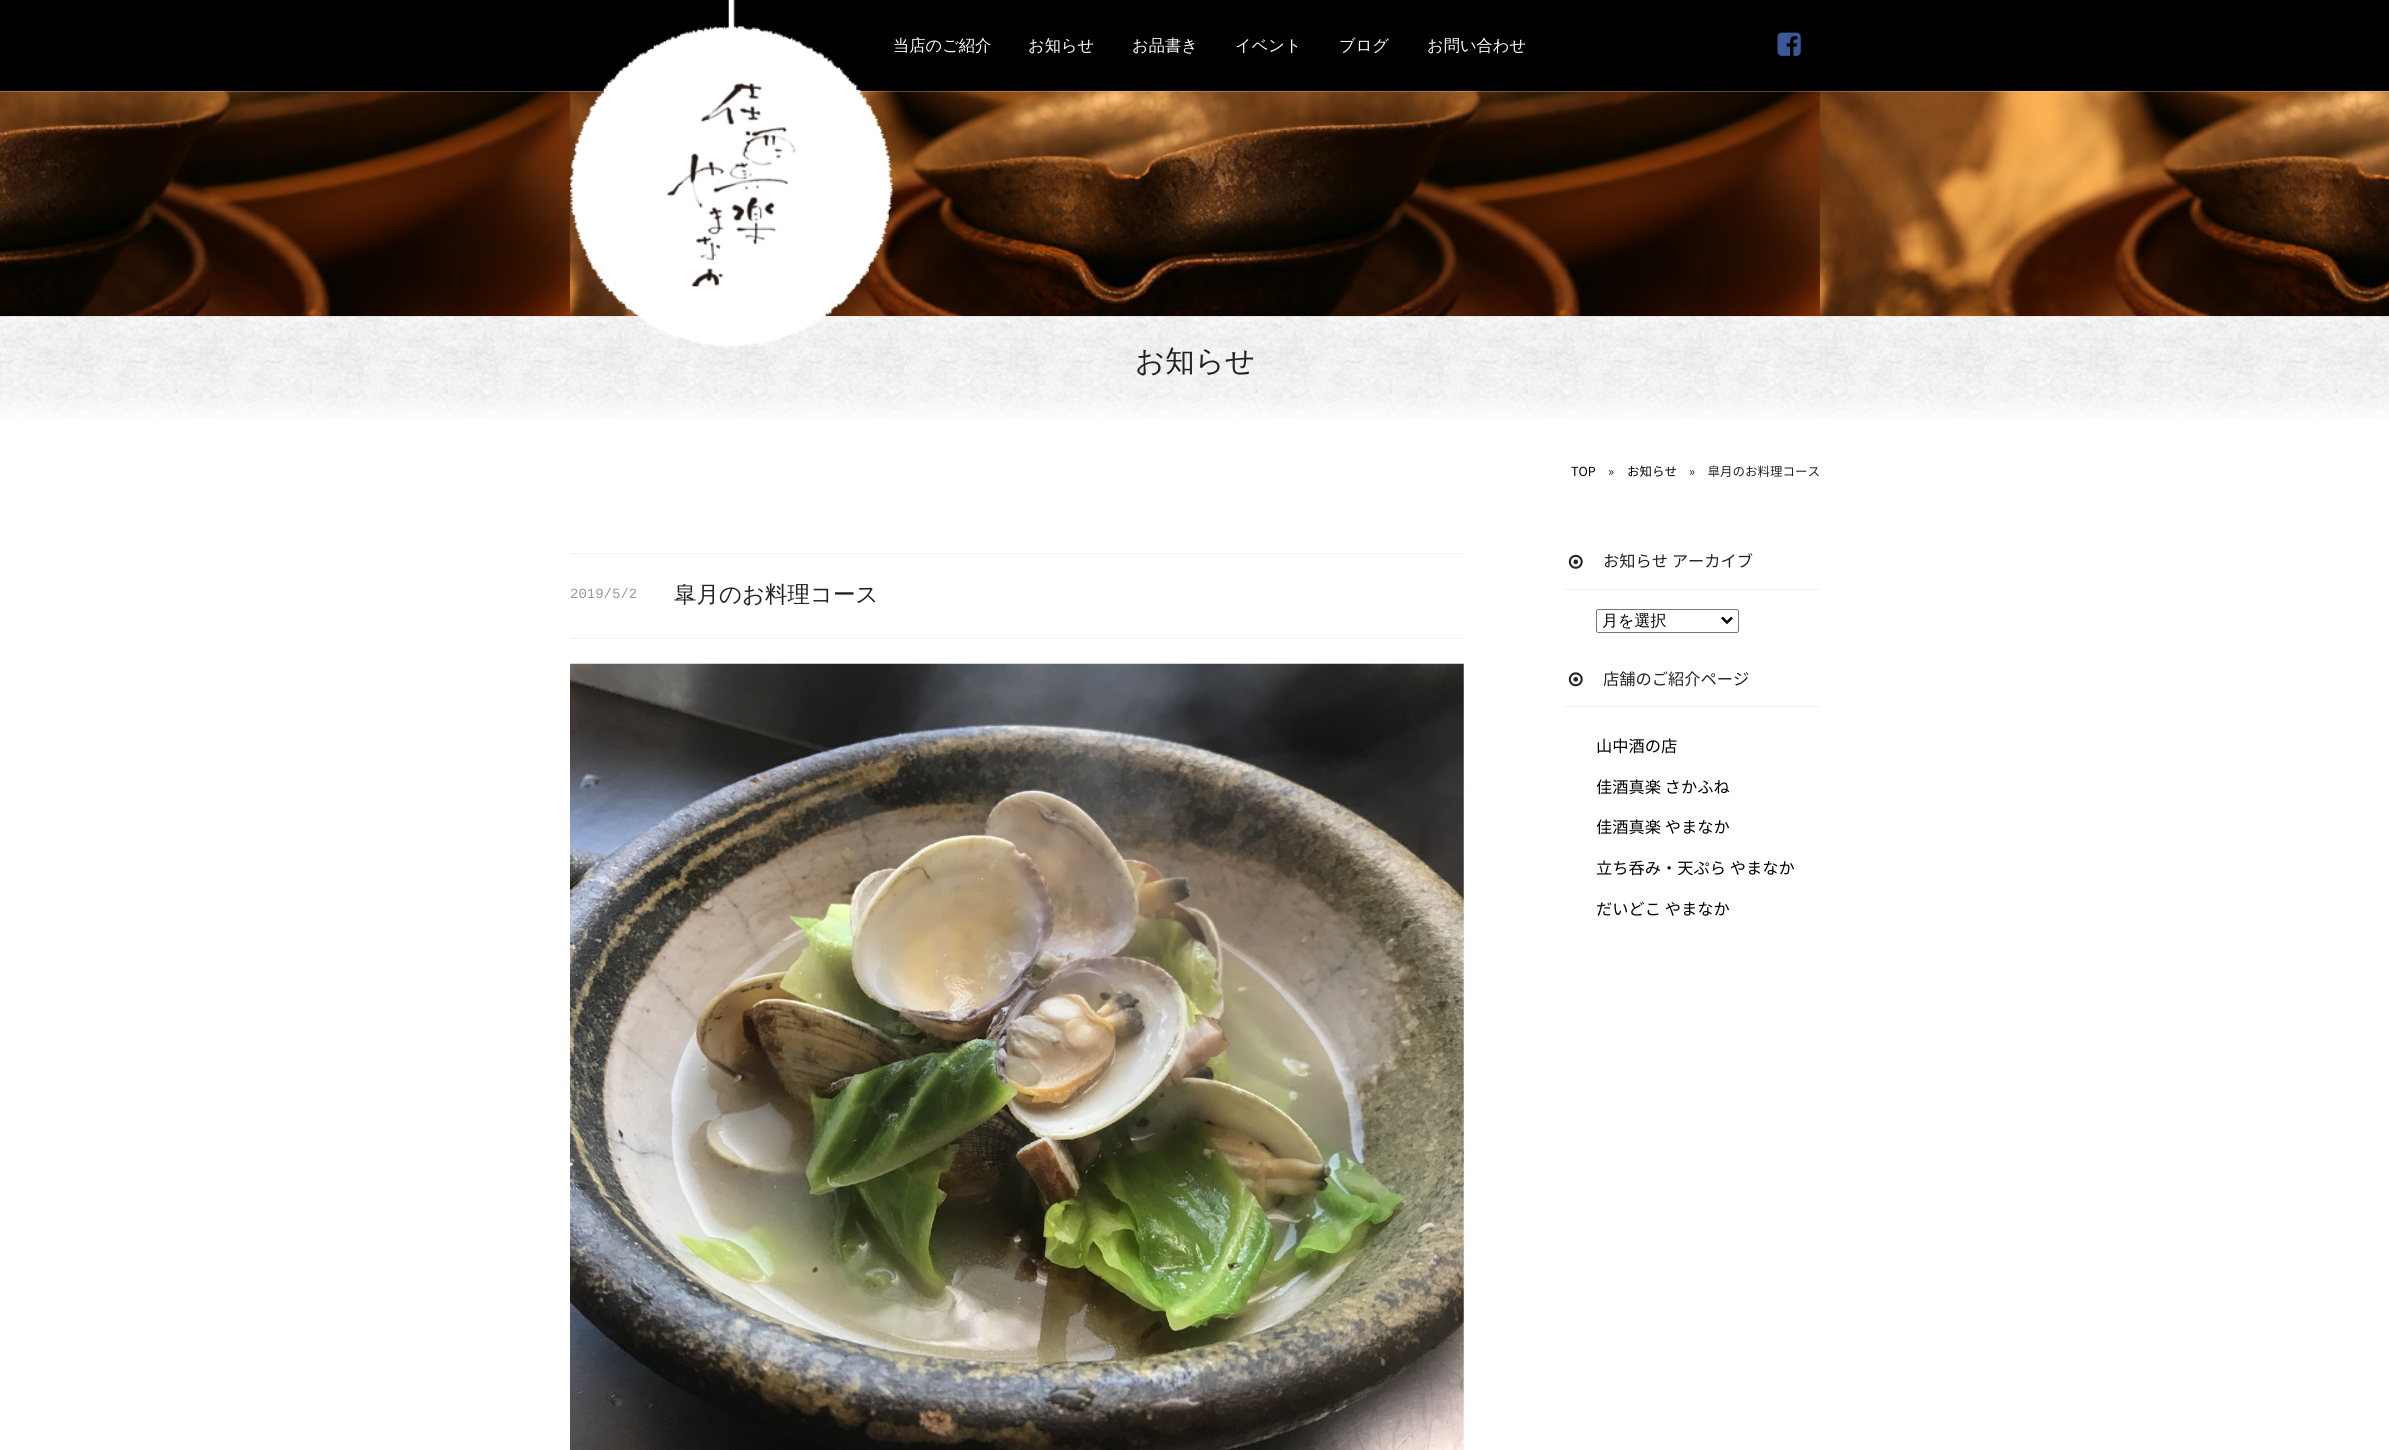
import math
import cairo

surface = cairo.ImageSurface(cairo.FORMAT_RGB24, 2389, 1450)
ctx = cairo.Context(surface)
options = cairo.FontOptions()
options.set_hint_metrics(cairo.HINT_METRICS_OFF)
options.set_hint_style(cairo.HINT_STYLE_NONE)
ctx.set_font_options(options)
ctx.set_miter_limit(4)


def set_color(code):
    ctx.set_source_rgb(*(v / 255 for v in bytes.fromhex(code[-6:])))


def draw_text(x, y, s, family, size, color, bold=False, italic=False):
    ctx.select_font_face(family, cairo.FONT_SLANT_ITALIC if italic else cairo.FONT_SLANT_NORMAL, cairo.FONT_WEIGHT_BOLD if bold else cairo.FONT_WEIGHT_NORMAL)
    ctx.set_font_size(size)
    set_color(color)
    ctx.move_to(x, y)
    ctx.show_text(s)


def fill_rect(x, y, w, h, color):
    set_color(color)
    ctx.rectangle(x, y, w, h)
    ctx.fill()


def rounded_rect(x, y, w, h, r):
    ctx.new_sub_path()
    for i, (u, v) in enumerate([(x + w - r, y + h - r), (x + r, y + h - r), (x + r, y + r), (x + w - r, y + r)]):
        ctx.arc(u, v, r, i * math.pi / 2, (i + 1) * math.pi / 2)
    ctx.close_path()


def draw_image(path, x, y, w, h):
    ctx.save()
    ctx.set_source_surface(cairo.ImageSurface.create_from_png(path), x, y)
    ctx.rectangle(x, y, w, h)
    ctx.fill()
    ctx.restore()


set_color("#ffffff")
ctx.paint()
fill_rect(0, 0, 2389, 91, "#000000")
draw_image("assets/img3.png", 0, 91, 2389, 226)
draw_image("assets/img4.png", 0, 316, 2389, 102)
draw_image("assets/img1.png", 570, 0, 323, 348)
draw_text(893, 51, "当店のご紹介", "WenQuanYi Zen Hei Medium", 16.25, "#ffffff")
draw_text(1028, 51, "お知らせ", "WenQuanYi Zen Hei Medium", 16.25, "#ffffff")
draw_text(1132, 51, "お品書き", "WenQuanYi Zen Hei Medium", 16.25, "#ffffff")
draw_text(1235, 51, "イベント", "WenQuanYi Zen Hei Medium", 16.25, "#ffffff")
draw_text(1339, 51, "ブログ", "WenQuanYi Zen Hei Medium", 16.25, "#ffffff")
draw_text(1427, 51, "お問い合わせ", "WenQuanYi Zen Hei Medium", 16.25, "#ffffff")
draw_image("assets/img2.png", 1777, 32, 24, 24)
draw_text(1135, 371, "お知らせ", "WenQuanYi Zen Hei Medium", 29.5, "#222222")
draw_text(1571, 476, "TOP", "Noto Sans JP", 12.5, "#000000")
draw_text(1608, 476, "»", "Noto Sans JP", 12.5, "#222222")
draw_text(1627, 476, "お知らせ", "Noto Sans JP", 12.5, "#000000")
draw_text(1689, 476, "»　皐月のお料理コース", "Noto Sans JP", 12.5, "#222222")
fill_rect(570, 553, 894, 1, "#eeeeee")
fill_rect(570, 638, 894, 1, "#eeeeee")
draw_text(570, 598, "2019/5/2", "Liberation Mono", 14, "#999999")
draw_text(674, 602, "皐月のお料理コース", "WenQuanYi Zen Hei Medium", 22.5, "#222222")
draw_image("assets/img5.png", 570, 663, 894, 787)
fill_rect(1564, 589, 256, 1, "#eeeeee")
draw_image("assets/img6.png", 1568, 554, 15, 15)
draw_text(1603, 567, "お知らせ アーカイブ", "Noto Sans JP", 16.25, "#222222")
rounded_rect(1596.5, 609.5, 142, 23, 2)
set_color("#767676")
ctx.set_line_width(1)
ctx.stroke()
ctx.new_path()
ctx.move_to(1722, 617.5)
ctx.line_to(1727, 622.5)
ctx.line_to(1732, 617.5)
set_color("#000000")
ctx.set_line_width(2.5)
ctx.stroke()
draw_text(1602, 626, "月を選択", "WenQuanYi Zen Hei Medium", 16, "#000000")
fill_rect(1564, 706, 256, 1, "#eeeeee")
draw_image("assets/img7.png", 1568, 672, 15, 15)
draw_text(1603, 685, "店舗のご紹介ページ", "Noto Sans JP", 16.25, "#222222")
draw_text(1596, 752, "山中酒の店", "Noto Sans JP", 16.25, "#000000")
draw_text(1596, 793, "佳酒真楽 さかふね", "Noto Sans JP", 16.25, "#000000")
draw_text(1596, 833, "佳酒真楽 やまなか", "Noto Sans JP", 16.25, "#000000")
draw_text(1596, 874, "立ち呑み・天ぷら やまなか", "Noto Sans JP", 16.25, "#000000")
draw_text(1596, 915, "だいどこ やまなか", "Noto Sans JP", 16.25, "#000000")
surface.write_to_png("output.png")
